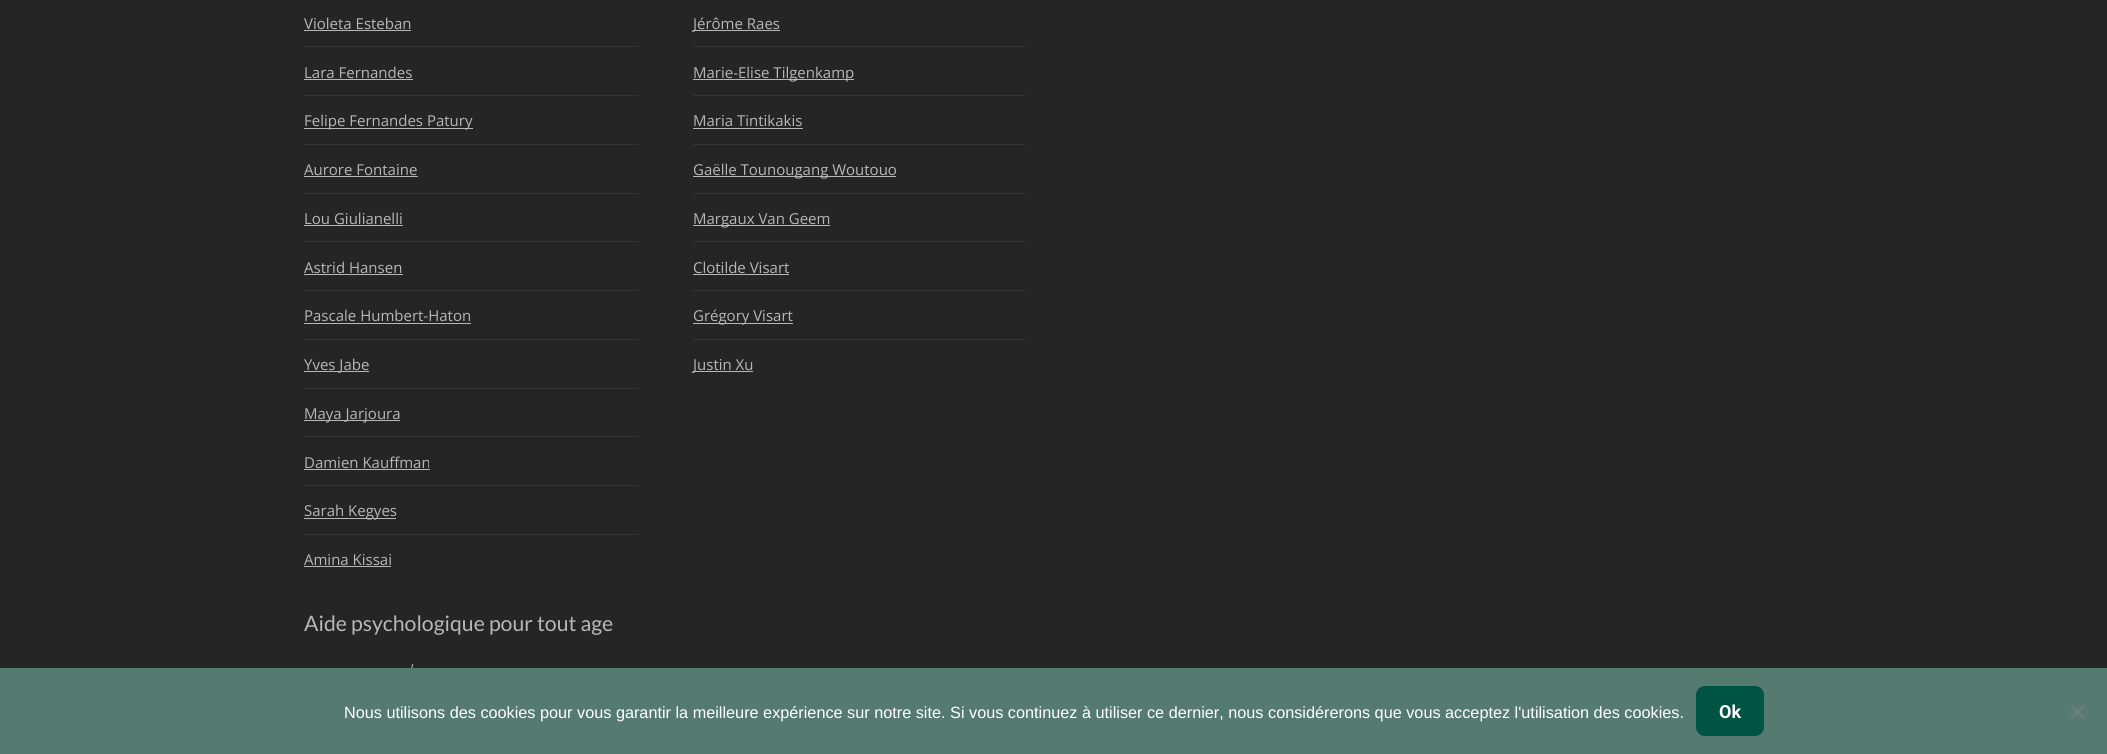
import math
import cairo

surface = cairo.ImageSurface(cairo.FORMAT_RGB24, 2107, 754)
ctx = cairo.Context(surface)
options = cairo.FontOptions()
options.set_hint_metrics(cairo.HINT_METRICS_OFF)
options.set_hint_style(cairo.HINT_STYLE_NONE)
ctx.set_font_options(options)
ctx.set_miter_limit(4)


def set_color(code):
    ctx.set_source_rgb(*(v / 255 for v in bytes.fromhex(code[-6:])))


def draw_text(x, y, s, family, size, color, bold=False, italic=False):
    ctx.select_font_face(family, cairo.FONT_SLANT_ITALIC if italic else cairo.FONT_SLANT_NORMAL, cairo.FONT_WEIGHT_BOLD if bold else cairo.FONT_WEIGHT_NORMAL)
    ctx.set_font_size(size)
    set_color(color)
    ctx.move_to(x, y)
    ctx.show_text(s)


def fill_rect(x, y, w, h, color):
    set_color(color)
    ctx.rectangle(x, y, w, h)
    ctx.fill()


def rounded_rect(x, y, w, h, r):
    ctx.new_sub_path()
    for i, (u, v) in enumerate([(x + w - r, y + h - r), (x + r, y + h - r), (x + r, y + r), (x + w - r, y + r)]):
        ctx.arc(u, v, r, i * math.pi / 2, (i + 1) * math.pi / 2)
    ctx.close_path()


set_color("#252525")
ctx.paint()
draw_text(304, 29, "Violeta Esteban", "Open Sans", 15, "#b7b7b7")
fill_rect(304, 30, 107, 1, "#b7b7b7")
fill_rect(304, 46, 334, 1, "#343434")
draw_text(304, 78, "Lara Fernandes", "Open Sans", 15, "#b7b7b7")
fill_rect(304, 79, 109, 1, "#b7b7b7")
fill_rect(304, 95, 334, 1, "#343434")
fill_rect(304, 128, 169, 1, "#b7b7b7")
draw_text(304, 126, "Felipe Fernandes Patury", "Open Sans", 15, "#b7b7b7")
fill_rect(304, 144, 334, 1, "#343434")
draw_text(304, 175, "Aurore Fontaine", "Open Sans", 15, "#b7b7b7")
fill_rect(304, 176, 114, 1, "#b7b7b7")
fill_rect(304, 193, 334, 1, "#343434")
draw_text(304, 224, "Lou Giulianelli", "Open Sans", 15, "#b7b7b7")
fill_rect(304, 225, 99, 1, "#b7b7b7")
fill_rect(304, 241, 334, 1, "#343434")
draw_text(304, 273, "Astrid Hansen", "Open Sans", 15, "#b7b7b7")
fill_rect(304, 274, 99, 1, "#b7b7b7")
fill_rect(304, 290, 334, 1, "#343434")
draw_text(304, 321, "Pascale Humbert-Haton", "Open Sans", 15, "#b7b7b7")
fill_rect(304, 323, 167, 1, "#b7b7b7")
fill_rect(304, 339, 334, 1, "#343434")
fill_rect(304, 371, 65, 1, "#b7b7b7")
draw_text(304, 370, "Yves Jabe", "Open Sans", 15, "#b7b7b7")
fill_rect(304, 388, 334, 1, "#343434")
fill_rect(304, 420, 96, 1, "#b7b7b7")
draw_text(304, 419, "Maya Jarjoura", "Open Sans", 15, "#b7b7b7")
fill_rect(304, 436, 334, 1, "#343434")
draw_text(304, 468, "Damien Kauffman", "Open Sans", 15, "#b7b7b7")
fill_rect(304, 469, 126, 1, "#b7b7b7")
fill_rect(304, 485, 334, 1, "#343434")
fill_rect(304, 518, 92, 1, "#b7b7b7")
draw_text(304, 516, "Sarah Kegyes", "Open Sans", 15, "#b7b7b7")
fill_rect(304, 534, 334, 1, "#343434")
draw_text(304, 565, "Amina Kissai", "Open Sans", 15, "#b7b7b7")
fill_rect(304, 566, 87, 1, "#b7b7b7")
fill_rect(693, 30, 87, 1, "#b7b7b7")
draw_text(693, 29, "Jérôme Raes", "Open Sans", 15, "#b7b7b7")
fill_rect(693, 46, 333, 1, "#343434")
fill_rect(693, 79, 161, 1, "#b7b7b7")
draw_text(693, 78, "Marie-Elise Tilgenkamp", "Open Sans", 15, "#b7b7b7")
fill_rect(693, 95, 333, 1, "#343434")
draw_text(693, 126, "Maria Tintikakis", "Open Sans", 15, "#b7b7b7")
fill_rect(693, 128, 110, 1, "#b7b7b7")
fill_rect(693, 144, 333, 1, "#343434")
fill_rect(693, 176, 203, 1, "#b7b7b7")
draw_text(693, 175, "Gaëlle Tounougang Woutouo", "Open Sans", 15, "#b7b7b7")
fill_rect(693, 193, 333, 1, "#343434")
fill_rect(693, 225, 137, 1, "#b7b7b7")
draw_text(693, 224, "Margaux Van Geem", "Open Sans", 15, "#b7b7b7")
fill_rect(693, 241, 333, 1, "#343434")
draw_text(693, 273, "Clotilde Visart", "Open Sans", 15, "#b7b7b7")
fill_rect(693, 274, 96, 1, "#b7b7b7")
fill_rect(693, 290, 333, 1, "#343434")
fill_rect(693, 323, 100, 1, "#b7b7b7")
draw_text(693, 321, "Grégory Visart", "Open Sans", 15, "#b7b7b7")
fill_rect(693, 339, 333, 1, "#343434")
fill_rect(693, 371, 60, 1, "#b7b7b7")
draw_text(693, 370, "Justin Xu", "Open Sans", 15, "#b7b7b7")
draw_text(304, 631, "Aide psychologique pour tout age", "Lato", 21.25, "#b7b7b7")
draw_text(411, 675, "’", "Open Sans", 15, "#b7b7b7")
fill_rect(0, 668, 2107, 86, "#557b70")
draw_text(344, 718, "Nous utilisons des cookies pour vous garantir la meilleure expérience sur notre site. Si vous continuez à utiliser ce dernier, nous considérerons que vous acceptez l'utilisation des cookies.", "Liberation Sans", 16.25, "#ffffff")
set_color("#005444")
rounded_rect(1696, 686, 68, 50, 9)
ctx.fill()
draw_text(1719, 718, "Ok", "Roboto", 18, "#ffffff", bold=True)
set_color("#6b7e78")
ctx.new_path()
ctx.move_to(2083, 704.5)
ctx.line_to(2085, 706)
ctx.line_to(2072, 719.5)
ctx.line_to(2070, 717.5)
ctx.close_path()
ctx.fill()
ctx.new_path()
ctx.move_to(2070, 706)
ctx.line_to(2072, 704.5)
ctx.line_to(2085, 717.5)
ctx.line_to(2083, 719.5)
ctx.close_path()
ctx.fill()
surface.write_to_png("output.png")
